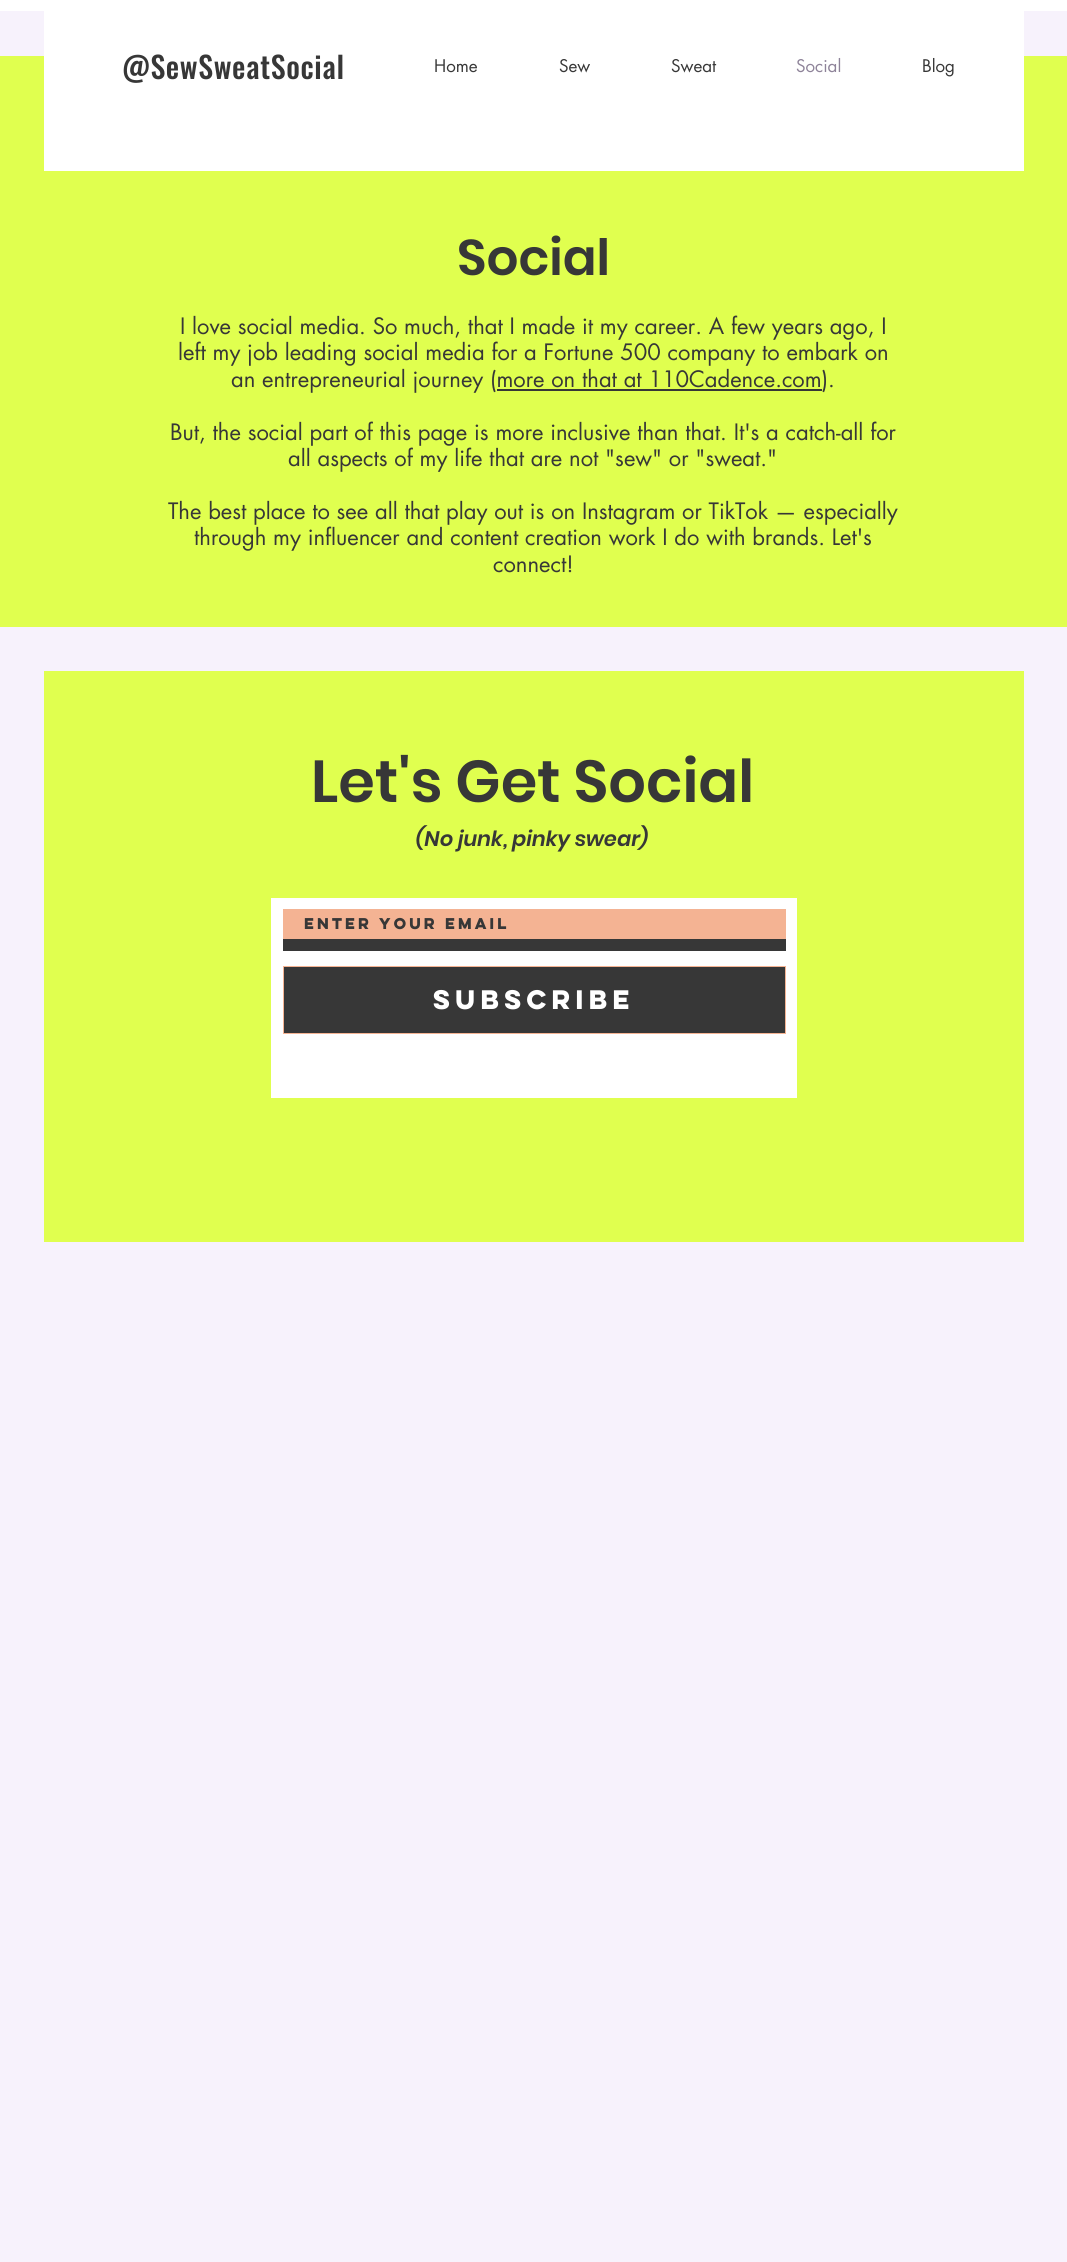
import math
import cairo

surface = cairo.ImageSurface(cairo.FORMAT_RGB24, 1067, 2262)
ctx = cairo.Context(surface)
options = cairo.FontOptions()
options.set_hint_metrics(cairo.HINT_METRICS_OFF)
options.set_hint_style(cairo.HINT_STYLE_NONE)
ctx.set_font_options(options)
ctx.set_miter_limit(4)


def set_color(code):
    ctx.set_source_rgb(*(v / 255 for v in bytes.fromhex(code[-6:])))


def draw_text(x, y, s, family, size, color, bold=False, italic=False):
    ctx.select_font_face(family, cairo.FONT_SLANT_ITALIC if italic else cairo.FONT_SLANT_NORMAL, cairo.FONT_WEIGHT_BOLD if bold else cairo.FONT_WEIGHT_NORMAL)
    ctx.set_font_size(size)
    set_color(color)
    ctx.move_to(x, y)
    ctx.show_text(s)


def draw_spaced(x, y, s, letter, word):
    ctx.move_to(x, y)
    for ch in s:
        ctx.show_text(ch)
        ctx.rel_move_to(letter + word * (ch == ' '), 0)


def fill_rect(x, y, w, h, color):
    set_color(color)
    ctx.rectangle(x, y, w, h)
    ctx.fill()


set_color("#ffffff")
ctx.paint()
fill_rect(0, 11, 1067, 2251, "#f7f2fc")
fill_rect(0, 56, 1067, 571, "#e0ff4f")
fill_rect(44, 11, 980, 160, "#ffffff")
ctx.select_font_face("Oswald Medium")
ctx.set_font_size(30)
set_color("#373737")
draw_spaced(122, 79, "@SewSweatSocial", 0.6, 0)
draw_text(434, 72, "Home", "futura", 17, "#373737")
draw_text(559, 72, "Sew", "futura", 17, "#373737")
draw_text(671, 72, "Sweat", "futura", 17, "#373737")
draw_text(796, 72, "Social", "futura", 17, "#8e8399")
draw_text(922, 72, "Blog", "futura", 17, "#373737")
draw_text(457, 275, "Social", "Poppins SemiBold", 50, "#373737")
draw_text(180, 334, "I love social media. So much, that I made it my career. A few years ago, I", "futura", 22, "#373737")
draw_text(178, 360, "left my job leading social media for a Fortune 500 company to embark on", "futura", 22, "#373737")
draw_text(231, 387, "an entrepreneurial journey (more on that at 110Cadence.com).", "futura", 22, "#373737")
fill_rect(497, 389, 325, 2, "#373737")
draw_text(170, 440, "But, the social part of this page is more inclusive than that. It's a catch-all for", "futura", 22, "#373737")
draw_text(288, 466, "all aspects of my life that are not \"sew\" or \"sweat.\"", "futura", 22, "#373737")
draw_text(168, 519, "The best place to see all that play out is on Instagram or TikTok — especially", "futura", 22, "#373737")
draw_text(194, 545, "through my influencer and content creation work I do with brands. Let's", "futura", 22, "#373737")
draw_text(493, 572, "connect!", "futura", 22, "#373737")
fill_rect(44, 671, 980, 571, "#e0ff4f")
draw_text(311, 802, "Let's Get Social", "Poppins SemiBold", 59, "#373737")
draw_text(416, 846, "(No junk, pinky swear)", "Poppins SemiBold", 21, "#373737", italic=True)
fill_rect(271, 898, 526, 200, "#ffffff")
fill_rect(283, 909, 503, 30, "#f4b393")
fill_rect(283, 939, 503, 12, "#373737")
draw_text(304, 929, "Enter your email", "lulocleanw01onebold", 14, "#373737", bold=True)
ctx.rectangle(283.5, 966.5, 502, 67)
ctx.fill_preserve()
set_color("#f4b393")
ctx.set_line_width(1)
ctx.stroke()
draw_text(433, 1009, "Subscribe", "lulocleanw01onebold", 24, "#ffffff", bold=True)
surface.write_to_png("output.png")
